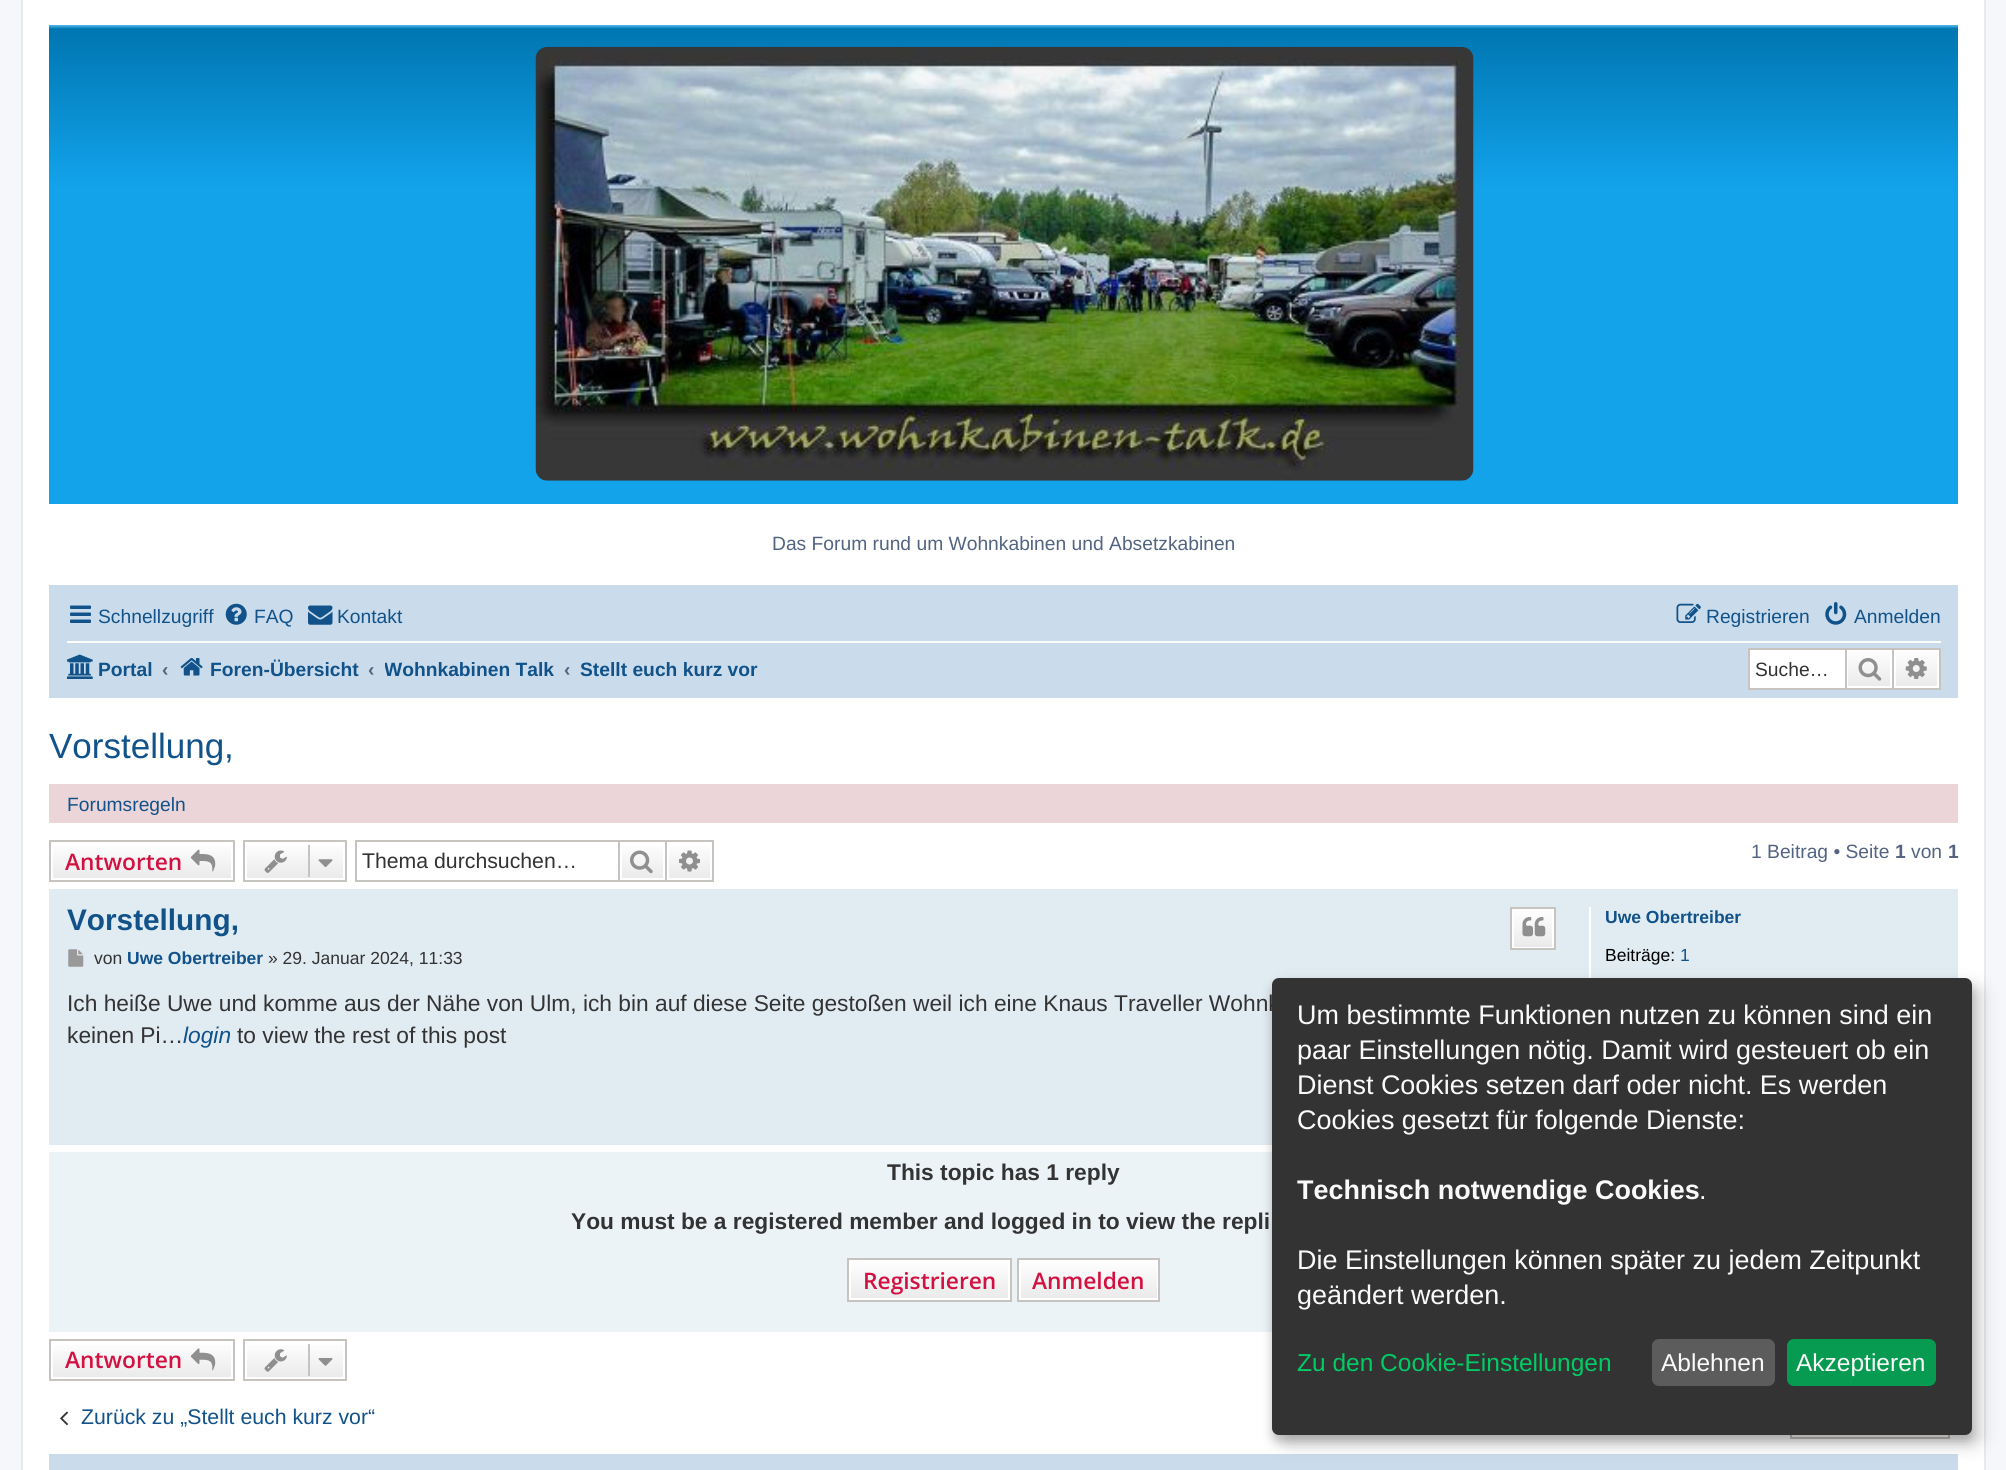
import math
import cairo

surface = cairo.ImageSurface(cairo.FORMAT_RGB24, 2006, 1470)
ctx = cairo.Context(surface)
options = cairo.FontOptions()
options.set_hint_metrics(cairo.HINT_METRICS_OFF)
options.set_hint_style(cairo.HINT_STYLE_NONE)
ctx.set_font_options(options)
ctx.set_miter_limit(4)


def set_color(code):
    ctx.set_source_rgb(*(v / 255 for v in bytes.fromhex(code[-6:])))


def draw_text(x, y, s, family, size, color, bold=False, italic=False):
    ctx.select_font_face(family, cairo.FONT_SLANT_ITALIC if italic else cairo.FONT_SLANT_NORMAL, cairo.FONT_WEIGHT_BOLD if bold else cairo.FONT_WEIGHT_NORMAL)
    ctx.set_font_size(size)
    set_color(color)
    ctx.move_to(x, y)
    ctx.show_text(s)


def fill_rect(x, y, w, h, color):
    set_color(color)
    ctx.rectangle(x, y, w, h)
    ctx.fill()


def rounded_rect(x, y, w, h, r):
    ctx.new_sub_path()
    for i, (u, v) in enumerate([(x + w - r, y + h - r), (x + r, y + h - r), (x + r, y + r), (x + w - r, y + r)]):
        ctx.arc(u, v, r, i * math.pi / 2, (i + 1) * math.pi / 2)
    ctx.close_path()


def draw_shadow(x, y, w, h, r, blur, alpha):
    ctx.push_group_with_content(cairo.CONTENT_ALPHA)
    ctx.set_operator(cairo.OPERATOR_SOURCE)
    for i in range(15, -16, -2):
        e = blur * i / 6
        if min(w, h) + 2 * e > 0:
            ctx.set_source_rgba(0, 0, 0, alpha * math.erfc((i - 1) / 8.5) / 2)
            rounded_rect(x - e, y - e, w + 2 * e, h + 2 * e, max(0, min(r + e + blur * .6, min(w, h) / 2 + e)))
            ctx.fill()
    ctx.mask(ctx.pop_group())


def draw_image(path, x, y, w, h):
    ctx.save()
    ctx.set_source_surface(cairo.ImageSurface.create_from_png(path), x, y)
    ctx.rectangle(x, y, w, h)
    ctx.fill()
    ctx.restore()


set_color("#f5f7fa")
ctx.paint()
set_color("#ffffff")
ctx.rectangle(22, -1, 1963, 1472)
ctx.fill_preserve()
set_color("#e6e9ed")
ctx.stroke()
gradient = cairo.LinearGradient(1004, 24, 1004, 504)
gradient.add_color_stop_rgba(0, 0.416, 0.808, 1, 1)
gradient.add_color_stop_rgba(0.01, 0, 0.463, 0.694, 1)
gradient.add_color_stop_rgba(0.34, 0.071, 0.639, 0.922, 1)
gradient.add_color_stop_rgba(1, 0.071, 0.639, 0.922, 1)
ctx.set_source(gradient)
ctx.rectangle(49, 25, 1909, 479)
ctx.fill()
draw_image("assets/img1.png", 535, 46, 939, 435)
draw_text(772, 550, "Das Forum rund um Wohnkabinen und Absetzkabinen", "Liberation Sans", 19.25, "#536482")
fill_rect(49, 585, 1909, 113, "#cadceb")
draw_image("assets/img2.png", 70, 605, 21, 18)
draw_text(98, 623, "Schnellzugriff", "Liberation Sans", 19.25, "#105289")
draw_image("assets/img3.png", 225, 603, 22, 22)
draw_text(254, 623, "FAQ", "Liberation Sans", 19.25, "#105289")
draw_image("assets/img4.png", 308, 605, 25, 20)
draw_text(337, 623, "Kontakt", "Liberation Sans", 19.25, "#105289")
draw_image("assets/img5.png", 1676, 603, 25, 20)
draw_text(1706, 623, "Registrieren", "Liberation Sans", 19.25, "#105289")
draw_image("assets/img6.png", 1825, 602, 22, 23)
draw_text(1854, 623, "Anmelden", "Liberation Sans", 19.25, "#105289")
fill_rect(67, 641, 1874, 2, "#ffffff")
draw_image("assets/img7.png", 67, 654, 26, 25)
draw_text(98, 676, "Portal", "Liberation Sans", 19.25, "#105289", bold=True)
draw_text(162, 676, "‹", "Liberation Sans", 19.25, "#536482", bold=True)
draw_image("assets/img8.png", 180, 658, 23, 18)
draw_text(210, 676, "Foren-Übersicht", "Liberation Sans", 19.25, "#105289", bold=True)
draw_text(368, 676, "‹", "Liberation Sans", 19.25, "#536482", bold=True)
ctx.save()
ctx.rectangle(385, 648, 170, 42)
ctx.clip()
draw_text(384, 676, "Wohnkabinen Talk", "Liberation Sans", 19.25, "#105289", bold=True)
ctx.restore()
draw_text(564, 676, "‹", "Liberation Sans", 19.25, "#536482", bold=True)
draw_text(580, 676, "Stellt euch kurz vor", "Liberation Sans", 19.25, "#105289", bold=True)
fill_rect(1750, 650, 95, 38, "#ffffff")
fill_rect(1748, 648, 97, 2, "#c7c3bf")
fill_rect(1748, 688, 97, 2, "#c7c3bf")
fill_rect(1748, 648, 2, 42, "#c7c3bf")
draw_text(1755, 676, "Suche…", "Liberation Sans", 19.25, "#333333")
gradient = cairo.LinearGradient(1869, 649, 1869, 688)
gradient.add_color_stop_rgba(0, 1, 1, 1, 1)
gradient.add_color_stop_rgba(1, 0.914, 0.914, 0.914, 1)
ctx.set_source(gradient)
ctx.rectangle(1848, 651, 42, 35)
ctx.fill()
ctx.rectangle(1847, 650, 44, 37)
set_color("#ffffff")
ctx.stroke()
ctx.rectangle(1846, 649, 47, 40)
set_color("#c7c3bf")
ctx.stroke()
draw_image("assets/img9.png", 1858, 658, 24, 23)
gradient = cairo.LinearGradient(1916, 649, 1916, 688)
gradient.add_color_stop_rgba(0, 1, 1, 1, 1)
gradient.add_color_stop_rgba(1, 0.914, 0.914, 0.914, 1)
ctx.set_source(gradient)
ctx.rectangle(1896, 651, 41, 35)
ctx.fill()
ctx.rectangle(1895, 650, 43, 37)
set_color("#ffffff")
ctx.stroke()
fill_rect(1894, 648, 47, 2, "#c7c3bf")
fill_rect(1939, 648, 2, 42, "#c7c3bf")
fill_rect(1894, 688, 47, 2, "#c7c3bf")
draw_image("assets/img10.png", 1905, 658, 22, 21)
draw_text(49, 758, "Vorstellung,", "Liberation Sans", 35, "#105289")
fill_rect(49, 784, 1909, 39, "#ecd5d8")
draw_text(67, 811, "Forumsregeln", "Liberation Sans", 19.25, "#105289")
gradient = cairo.LinearGradient(142, 842, 142, 880)
gradient.add_color_stop_rgba(0, 1, 1, 1, 1)
gradient.add_color_stop_rgba(1, 0.914, 0.914, 0.914, 1)
ctx.set_source(gradient)
ctx.rectangle(53, 846, 178, 32)
ctx.fill()
ctx.rectangle(50, 841, 184, 40)
set_color("#c7c3bf")
ctx.stroke()
draw_text(65, 870, "Antworten", "Open Sans SemiBold", 22.75, "#d31141")
draw_image("assets/img11.png", 190, 849, 26, 23)
gradient = cairo.LinearGradient(295, 842, 295, 880)
gradient.add_color_stop_rgba(0, 1, 1, 1, 1)
gradient.add_color_stop_rgba(1, 0.914, 0.914, 0.914, 1)
ctx.set_source(gradient)
ctx.rectangle(247, 846, 96, 32)
ctx.fill()
ctx.rectangle(244, 841, 102, 40)
set_color("#c7c3bf")
ctx.stroke()
draw_image("assets/img12.png", 264, 850, 23, 23)
fill_rect(308, 845, 2, 32, "#c7c3bf")
draw_image("assets/img13.png", 318, 859, 15, 8)
fill_rect(355, 840, 263, 2, "#c7c3bf")
fill_rect(355, 880, 263, 2, "#c7c3bf")
fill_rect(355, 840, 2, 42, "#c7c3bf")
draw_text(362, 868, "Thema durchsuchen…", "Liberation Sans", 21.25, "#333333")
gradient = cairo.LinearGradient(642, 842, 642, 880)
gradient.add_color_stop_rgba(0, 1, 1, 1, 1)
gradient.add_color_stop_rgba(1, 0.914, 0.914, 0.914, 1)
ctx.set_source(gradient)
ctx.rectangle(622, 846, 41, 32)
ctx.fill()
ctx.rectangle(619, 841, 47, 40)
set_color("#c7c3bf")
ctx.stroke()
draw_image("assets/img14.png", 630, 850, 23, 24)
gradient = cairo.LinearGradient(690, 842, 690, 880)
gradient.add_color_stop_rgba(0, 1, 1, 1, 1)
gradient.add_color_stop_rgba(1, 0.914, 0.914, 0.914, 1)
ctx.set_source(gradient)
ctx.rectangle(669, 846, 41, 32)
ctx.fill()
fill_rect(667, 840, 47, 2, "#c7c3bf")
fill_rect(712, 840, 2, 42, "#c7c3bf")
fill_rect(667, 880, 47, 2, "#c7c3bf")
draw_image("assets/img15.png", 679, 850, 21, 22)
draw_text(1751, 858, "1 Beitrag • Seite", "Liberation Sans", 19.25, "#536482")
draw_text(1895, 858, "1", "Liberation Sans", 19.25, "#536482", bold=True)
draw_text(1911, 858, "von", "Liberation Sans", 19.25, "#536482")
draw_text(1948, 858, "1", "Liberation Sans", 19.25, "#536482", bold=True)
fill_rect(49, 889, 1909, 256, "#e1ebf2")
draw_text(67, 930, "Vorstellung,", "Liberation Sans", 29.75, "#105289", bold=True)
gradient = cairo.LinearGradient(1533, 908, 1533, 949)
gradient.add_color_stop_rgba(0, 1, 1, 1, 1)
gradient.add_color_stop_rgba(1, 0.914, 0.914, 0.914, 1)
ctx.set_source(gradient)
ctx.rectangle(1514, 910, 38, 37)
ctx.fill()
ctx.rectangle(1513, 909, 40, 39)
set_color("#ffffff")
ctx.stroke()
ctx.rectangle(1511, 908, 44, 41)
set_color("#c7c3bf")
ctx.stroke()
draw_image("assets/img16.png", 1522, 917, 24, 20)
draw_image("assets/img17.png", 68, 949, 16, 18)
draw_text(94, 964, "von", "Liberation Sans", 17.5, "#333333")
draw_text(127, 964, "Uwe Obertreiber", "Liberation Sans", 17.5, "#105289", bold=True)
draw_text(268, 964, "» 29. Januar 2024, 11:33", "Liberation Sans", 17.5, "#333333")
draw_text(67, 1011, "Ich heiße Uwe und komme aus der Nähe von Ulm, ich bin auf diese Seite gestoßen weil ich eine Knaus Traveller Wohnk", "Liberation Sans", 22.75, "#333333")
draw_text(67, 1043, "keinen Pi…", "Liberation Sans", 22.75, "#333333")
draw_text(183, 1043, "login", "Liberation Sans", 22.75, "#105289", italic=True)
draw_text(237, 1043, "to view the rest of this post", "Liberation Sans", 22.75, "#333333")
fill_rect(1589, 907, 2, 71, "#ffffff")
draw_text(1605, 923, "Uwe Obertreiber", "Liberation Sans", 17.5, "#105289", bold=True)
draw_text(1605, 961, "Beiträge:", "Liberation Sans", 17.5, "#000000")
draw_text(1680, 961, "1", "Liberation Sans", 17.5, "#105289")
fill_rect(49, 1152, 1223, 180, "#ecf3f7")
draw_text(887, 1180, "This topic has 1 reply", "Liberation Sans", 22.75, "#333333", bold=True)
draw_text(571, 1229, "You must be a registered member and logged in to view the repli", "Liberation Sans", 22.75, "#333333", bold=True)
gradient = cairo.LinearGradient(929, 1260, 929, 1300)
gradient.add_color_stop_rgba(0, 1, 1, 1, 1)
gradient.add_color_stop_rgba(1, 0.914, 0.914, 0.914, 1)
ctx.set_source(gradient)
ctx.rectangle(851, 1262, 157, 36)
ctx.fill()
ctx.rectangle(850, 1261, 159, 38)
set_color("#ffffff")
ctx.stroke()
ctx.rectangle(848, 1259, 163, 42)
set_color("#c7c3bf")
ctx.stroke()
draw_text(863, 1289, "Registrieren", "Open Sans SemiBold", 22.75, "#d31141")
gradient = cairo.LinearGradient(1089, 1260, 1089, 1300)
gradient.add_color_stop_rgba(0, 1, 1, 1, 1)
gradient.add_color_stop_rgba(1, 0.914, 0.914, 0.914, 1)
ctx.set_source(gradient)
ctx.rectangle(1021, 1262, 136, 36)
ctx.fill()
ctx.rectangle(1020, 1261, 138, 38)
set_color("#ffffff")
ctx.stroke()
ctx.rectangle(1018, 1259, 141, 42)
set_color("#c7c3bf")
ctx.stroke()
draw_text(1032, 1289, "Anmelden", "Open Sans SemiBold", 22.75, "#d31141")
gradient = cairo.LinearGradient(142, 1341, 142, 1379)
gradient.add_color_stop_rgba(0, 1, 1, 1, 1)
gradient.add_color_stop_rgba(1, 0.914, 0.914, 0.914, 1)
ctx.set_source(gradient)
ctx.rectangle(53, 1345, 178, 32)
ctx.fill()
ctx.rectangle(50, 1340, 184, 40)
set_color("#c7c3bf")
ctx.stroke()
draw_text(65, 1368, "Antworten", "Open Sans SemiBold", 22.75, "#d31141")
draw_image("assets/img18.png", 190, 1348, 26, 23)
gradient = cairo.LinearGradient(295, 1341, 295, 1379)
gradient.add_color_stop_rgba(0, 1, 1, 1, 1)
gradient.add_color_stop_rgba(1, 0.914, 0.914, 0.914, 1)
ctx.set_source(gradient)
ctx.rectangle(247, 1345, 96, 32)
ctx.fill()
ctx.rectangle(244, 1340, 102, 40)
set_color("#c7c3bf")
ctx.stroke()
draw_image("assets/img19.png", 264, 1349, 23, 23)
fill_rect(308, 1344, 2, 32, "#c7c3bf")
draw_image("assets/img20.png", 318, 1358, 15, 8)
draw_image("assets/img21.png", 60, 1411, 8, 15)
draw_text(81, 1424, "Zurück zu „Stellt euch kurz vor“", "Liberation Sans", 21.25, "#105289")
ctx.rectangle(1791, 1398, 158, 40)
set_color("#c7c3bf")
ctx.stroke()
fill_rect(49, 1454, 1909, 16, "#cadceb")
set_color("#000000")
draw_shadow(1281, 987, 700, 457, 7, 9, 0.19)
draw_shadow(1272, 985, 700, 457, 7, 5, 0.2)
set_color("#333333")
rounded_rect(1272, 978, 700, 457, 7)
ctx.fill()
draw_text(1297, 1024, "Um bestimmte Funktionen nutzen zu können sind ein", "Liberation Sans", 26.95, "#fafafa")
draw_text(1297, 1059, "paar Einstellungen nötig. Damit wird gesteuert ob ein", "Liberation Sans", 26.95, "#fafafa")
draw_text(1297, 1094, "Dienst Cookies setzen darf oder nicht. Es werden", "Liberation Sans", 26.95, "#fafafa")
draw_text(1297, 1129, "Cookies gesetzt für folgende Dienste:", "Liberation Sans", 26.95, "#fafafa")
draw_text(1297, 1199, "Technisch notwendige Cookies", "Liberation Sans", 26.95, "#fafafa", bold=True)
draw_text(1699, 1199, ".", "Liberation Sans", 26.95, "#fafafa")
draw_text(1297, 1269, "Die Einstellungen können später zu jedem Zeitpunkt", "Liberation Sans", 26.95, "#fafafa")
draw_text(1297, 1304, "geändert werden.", "Liberation Sans", 26.95, "#fafafa")
draw_text(1297, 1371, "Zu den Cookie-Einstellungen", "Liberation Sans", 24.5, "#00cc66")
set_color("#5c5c5c")
rounded_rect(1652, 1339, 123, 47, 7)
ctx.fill()
draw_text(1661, 1371, "Ablehnen", "Liberation Sans", 24.5, "#fafafa")
set_color("#079a51")
rounded_rect(1787, 1339, 149, 47, 7)
ctx.fill()
draw_text(1796, 1371, "Akzeptieren", "Liberation Sans", 24.5, "#fafafa")
surface.write_to_png("output.png")
